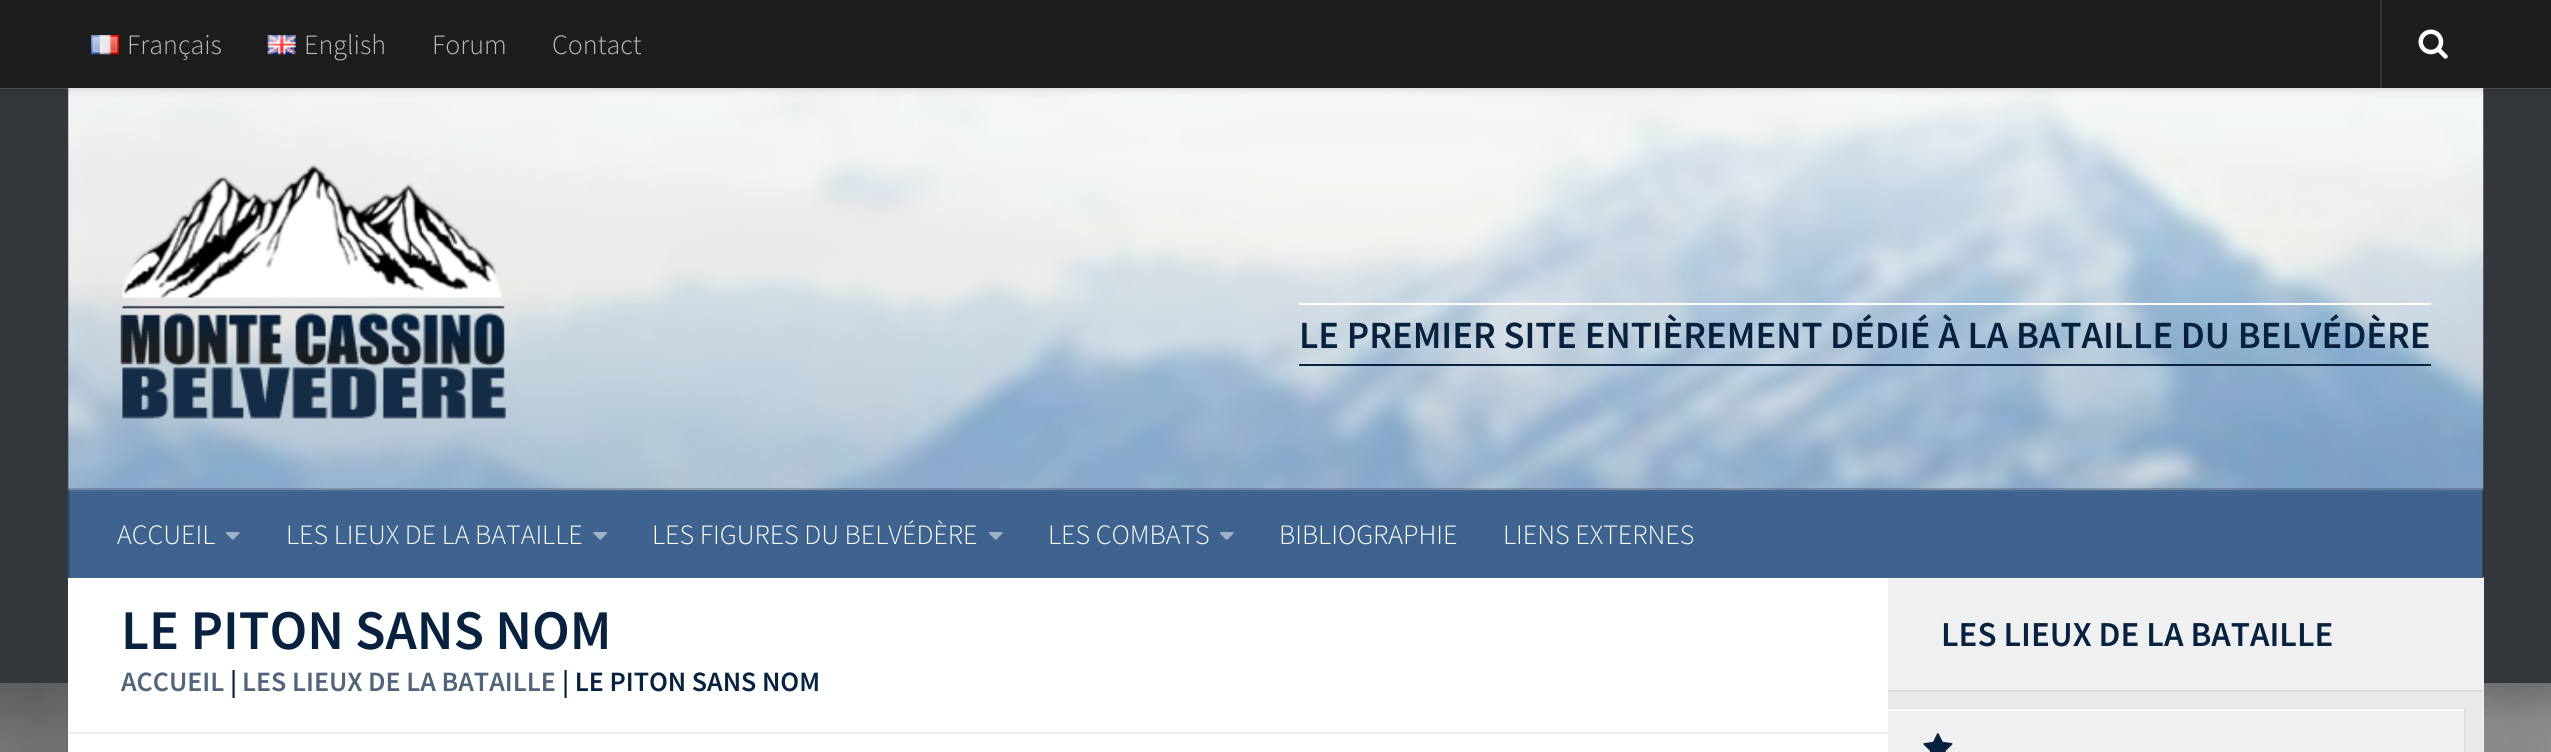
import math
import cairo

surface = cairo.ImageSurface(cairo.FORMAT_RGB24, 2551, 752)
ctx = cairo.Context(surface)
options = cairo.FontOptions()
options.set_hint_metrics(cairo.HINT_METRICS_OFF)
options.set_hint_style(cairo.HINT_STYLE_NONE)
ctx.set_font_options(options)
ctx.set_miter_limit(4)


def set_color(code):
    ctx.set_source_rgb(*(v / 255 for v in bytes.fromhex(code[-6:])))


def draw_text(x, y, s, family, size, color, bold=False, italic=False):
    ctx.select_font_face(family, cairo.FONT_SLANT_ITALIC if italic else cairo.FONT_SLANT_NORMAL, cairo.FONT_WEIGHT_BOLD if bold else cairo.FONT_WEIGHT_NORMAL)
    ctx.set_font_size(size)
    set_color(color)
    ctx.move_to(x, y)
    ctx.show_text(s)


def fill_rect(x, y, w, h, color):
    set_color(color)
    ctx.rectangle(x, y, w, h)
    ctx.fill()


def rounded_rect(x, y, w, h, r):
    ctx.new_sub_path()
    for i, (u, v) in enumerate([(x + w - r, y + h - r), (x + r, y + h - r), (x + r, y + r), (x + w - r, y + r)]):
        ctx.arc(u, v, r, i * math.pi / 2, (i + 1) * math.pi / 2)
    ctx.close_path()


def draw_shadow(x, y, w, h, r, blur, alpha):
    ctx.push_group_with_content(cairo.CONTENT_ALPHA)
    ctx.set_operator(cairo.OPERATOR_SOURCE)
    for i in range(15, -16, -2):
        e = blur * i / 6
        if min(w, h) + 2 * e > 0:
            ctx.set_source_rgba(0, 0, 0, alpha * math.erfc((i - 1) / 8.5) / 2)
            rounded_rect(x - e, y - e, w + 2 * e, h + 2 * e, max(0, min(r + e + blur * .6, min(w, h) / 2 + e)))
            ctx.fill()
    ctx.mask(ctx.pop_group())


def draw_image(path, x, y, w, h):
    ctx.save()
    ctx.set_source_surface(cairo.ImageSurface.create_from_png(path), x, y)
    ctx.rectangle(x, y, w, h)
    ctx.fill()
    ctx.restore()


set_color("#ffffff")
ctx.paint()
draw_image("assets/img1.png", 0, 683, 2551, 69)
set_color("#000000")
draw_shadow(68, 579, 2415, 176, 0, 1, 0.1)
fill_rect(0, 88, 2551, 595, "#33363b")
draw_image("assets/img5.png", 68, 88, 2416, 402)
ctx.set_source_rgba(1, 1, 1, 0.15)
ctx.new_path()
ctx.move_to(0, 88)
ctx.line_to(0, 89)
ctx.line_to(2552, 89)
ctx.line_to(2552, 2)
ctx.line_to(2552, 88)
ctx.close_path()
ctx.fill()
set_color("#000000")
draw_shadow(0, 0, 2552, 88, 0, 4.5, 0.2)
fill_rect(0, 0, 2551, 88, "#1d1d1d")
draw_image("assets/img2.png", 91, 35, 28, 20)
draw_text(127, 54, "Français", "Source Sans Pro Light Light", 28, "#bbbbbb")
draw_image("assets/img3.png", 267, 35, 29, 20)
draw_text(304, 54, "English", "Source Sans Pro Light Light", 28, "#bbbbbb")
draw_text(432, 54, "Forum", "Source Sans Pro Light Light", 28, "#bbbbbb")
draw_text(552, 54, "Contact", "Source Sans Pro Light Light", 28, "#bbbbbb")
set_color("#343434")
ctx.new_path()
ctx.move_to(2380, 0)
ctx.line_to(2380, 88)
ctx.line_to(2482, 88)
ctx.line_to(2382, 88)
ctx.line_to(2382, 0)
ctx.close_path()
ctx.fill()
draw_image("assets/img4.png", 2418, 29, 30, 30)
draw_image("assets/img6.png", 120, 164, 386, 255)
fill_rect(1299, 303, 1132, 2, "#ffffff")
fill_rect(1299, 364, 1132, 2, "#07213f")
draw_text(1299, 348, "LE PREMIER SITE ENTIÈREMENT DÉDIÉ À LA BATAILLE DU BELVÉDÈRE", "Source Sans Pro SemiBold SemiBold", 38.5, "#07213f")
ctx.set_source_rgba(0, 0, 0, 0.2)
ctx.new_path()
ctx.move_to(68, 488)
ctx.line_to(68, 576)
ctx.line_to(68, 490)
ctx.line_to(2483, 490)
ctx.line_to(2483, 488)
ctx.close_path()
ctx.fill()
fill_rect(1888, 577, 596, 175, "#f0f0f0")
fill_rect(70, 490, 2413, 88, "#3d638e")
ctx.set_source_rgba(0, 0, 0, 0.2)
ctx.rectangle(2482, 490, 2, 88)
ctx.fill()
fill_rect(68, 490, 2, 88, "#314f72")
ctx.set_source_rgba(1, 1, 1, 0.05)
ctx.rectangle(68, 490, 2415, 2)
ctx.fill()
draw_text(117, 544, "ACCUEIL", "Source Sans Pro Light Light", 28, "#ffffff")
draw_image("assets/img7.png", 225, 532, 15, 8)
draw_text(286, 544, "LES LIEUX DE LA BATAILLE", "Source Sans Pro Light Light", 28, "#ffffff")
draw_image("assets/img8.png", 593, 532, 15, 8)
draw_text(652, 544, "LES FIGURES DU BELVÉDÈRE", "Source Sans Pro Light Light", 28, "#ffffff")
draw_image("assets/img7.png", 988, 532, 15, 8)
draw_text(1048, 544, "LES COMBATS", "Source Sans Pro Light Light", 28, "#ffffff")
draw_image("assets/img7.png", 1219, 532, 15, 8)
draw_text(1279, 544, "BIBLIOGRAPHIE", "Source Sans Pro Light Light", 28, "#ffffff")
draw_text(1503, 544, "LIENS EXTERNES", "Source Sans Pro Light Light", 28, "#ffffff")
fill_rect(68, 578, 1820, 174, "#ffffff")
fill_rect(68, 732, 1820, 2, "#eeeeee")
draw_text(121, 649, "LE PITON SANS NOM", "Source Sans Pro SemiBold SemiBold", 56, "#07213f")
draw_text(121, 691, "ACCUEIL", "Source Sans Pro SemiBold SemiBold", 28, "#516479")
draw_text(230, 691, "|", "Source Sans Pro SemiBold SemiBold", 28, "#07213f")
draw_text(242, 691, "LES LIEUX DE LA BATAILLE", "Source Sans Pro SemiBold SemiBold", 28, "#516479")
draw_text(562, 691, "| LE PITON SANS NOM", "Source Sans Pro SemiBold SemiBold", 28, "#07213f")
draw_text(1941, 646, "LES LIEUX DE LA BATAILLE", "Source Sans Pro SemiBold SemiBold", 35, "#07213f")
fill_rect(1888, 692, 595, 60, "#e9e9e9")
fill_rect(1888, 690, 595, 2, "#dddddd")
fill_rect(1888, 711, 576, 41, "#f0f0f0")
fill_rect(1888, 709, 576, 2, "#f9f9f9")
fill_rect(2464, 709, 2, 43, "#dddddd")
draw_image("assets/img9.png", 1923, 733, 30, 19)
surface.write_to_png("output.png")
